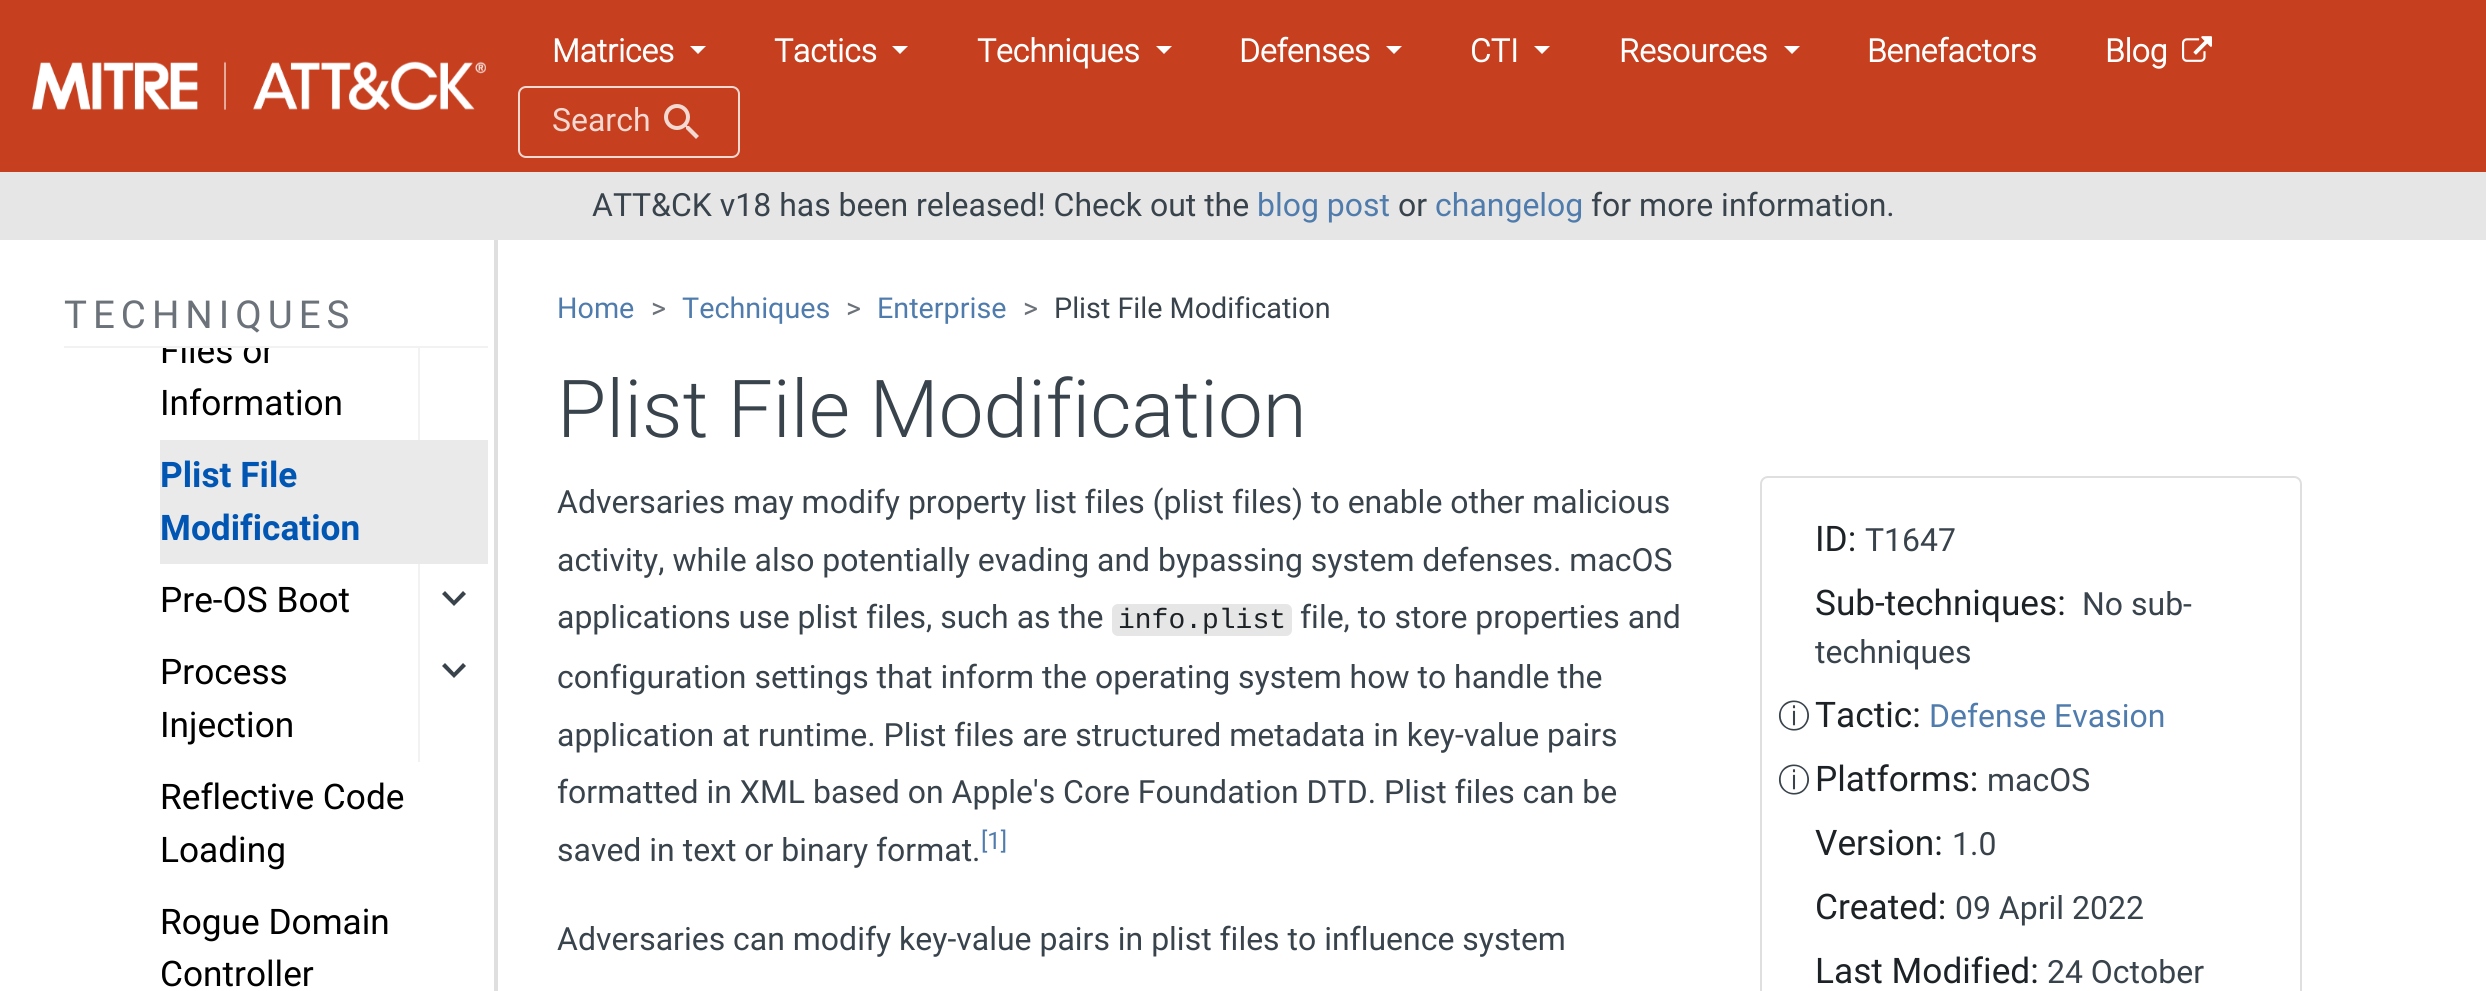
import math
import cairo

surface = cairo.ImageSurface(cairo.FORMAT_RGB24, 2486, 991)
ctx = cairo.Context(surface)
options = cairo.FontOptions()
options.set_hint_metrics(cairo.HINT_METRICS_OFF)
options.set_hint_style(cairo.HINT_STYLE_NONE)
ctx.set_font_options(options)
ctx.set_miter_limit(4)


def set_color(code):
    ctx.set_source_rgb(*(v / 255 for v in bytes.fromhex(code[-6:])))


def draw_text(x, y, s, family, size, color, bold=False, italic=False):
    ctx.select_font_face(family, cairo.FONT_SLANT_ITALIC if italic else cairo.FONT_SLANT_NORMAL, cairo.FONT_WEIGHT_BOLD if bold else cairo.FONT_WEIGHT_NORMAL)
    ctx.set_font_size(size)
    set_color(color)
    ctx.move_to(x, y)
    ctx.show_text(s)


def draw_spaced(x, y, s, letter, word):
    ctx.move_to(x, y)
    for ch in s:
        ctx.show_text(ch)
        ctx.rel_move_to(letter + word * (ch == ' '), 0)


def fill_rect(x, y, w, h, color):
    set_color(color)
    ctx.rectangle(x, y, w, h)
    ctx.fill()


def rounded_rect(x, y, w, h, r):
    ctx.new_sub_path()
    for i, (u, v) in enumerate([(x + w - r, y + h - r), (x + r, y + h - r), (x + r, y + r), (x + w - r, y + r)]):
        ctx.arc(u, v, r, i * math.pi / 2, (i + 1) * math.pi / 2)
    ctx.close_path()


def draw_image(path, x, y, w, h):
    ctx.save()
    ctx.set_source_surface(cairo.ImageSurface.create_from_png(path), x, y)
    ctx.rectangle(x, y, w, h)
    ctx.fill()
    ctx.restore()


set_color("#ffffff")
ctx.paint()
fill_rect(0, 0, 2486, 172, "#c63f1f")
draw_image("assets/img1.png", 32, 61, 454, 49)
draw_text(552, 62, "Matrices", "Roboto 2", 32, "#ffffff", bold=True)
ctx.new_path()
ctx.move_to(690, 46)
ctx.line_to(706, 46)
ctx.line_to(698, 54)
ctx.close_path()
ctx.fill()
draw_text(774, 62, "Tactics", "Roboto 2", 32, "#ffffff", bold=True)
ctx.new_path()
ctx.move_to(892, 46)
ctx.line_to(908, 46)
ctx.line_to(900, 54)
ctx.close_path()
ctx.fill()
draw_text(977, 62, "Techniques", "Roboto 2", 32, "#ffffff", bold=True)
ctx.new_path()
ctx.move_to(1156, 46)
ctx.line_to(1172, 46)
ctx.line_to(1164, 54)
ctx.close_path()
ctx.fill()
draw_text(1239, 62, "Defenses", "Roboto 2", 32, "#ffffff", bold=True)
ctx.new_path()
ctx.move_to(1386, 46)
ctx.line_to(1402, 46)
ctx.line_to(1394, 54)
ctx.close_path()
ctx.fill()
draw_text(1470, 62, "CTI", "Roboto 2", 32, "#ffffff", bold=True)
ctx.new_path()
ctx.move_to(1534, 46)
ctx.line_to(1550, 46)
ctx.line_to(1542, 54)
ctx.close_path()
ctx.fill()
draw_text(1619, 62, "Resources", "Roboto 2", 32, "#ffffff", bold=True)
ctx.new_path()
ctx.move_to(1784, 46)
ctx.line_to(1800, 46)
ctx.line_to(1792, 54)
ctx.close_path()
ctx.fill()
draw_text(1867, 62, "Benefactors", "Roboto 2", 32, "#ffffff", bold=True)
draw_text(2105, 62, "Blog", "Roboto 2", 32, "#ffffff", bold=True)
draw_image("assets/img2.png", 2182, 36, 30, 26)
rounded_rect(519, 87, 220, 70, 7)
set_color("#f4d9d2")
ctx.stroke()
draw_text(552, 131, "Search", "Roboto", 32, "#f4d9d2")
draw_image("assets/img3.png", 664, 104, 35, 35)
fill_rect(0, 172, 2486, 68, "#e6e6e6")
draw_text(592, 216, "ATT&CK v18 has been released! Check out the", "Roboto", 32, "#39434c")
draw_text(1257, 216, "blog post", "Roboto", 32, "#4f7cac")
draw_text(1398, 216, "or", "Roboto", 32, "#39434c")
draw_text(1435, 216, "changelog", "Roboto", 32, "#4f7cac")
draw_text(1591, 216, "for more information.", "Roboto", 32, "#39434c")
fill_rect(64, 346, 424, 2, "#f2f2f2")
ctx.set_font_size(38.5)
set_color("#6b7279")
draw_spaced(64, 328, "TECHNIQUES", 6, 0)
ctx.save()
ctx.rectangle(64, 348, 424, 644)
ctx.clip()
draw_text(160, 363, "Files or", "Roboto", 35.25, "#000000")
ctx.restore()
draw_text(160, 415, "Information", "Roboto", 35.25, "#000000")
fill_rect(418, 348, 2, 92, "#f2f2f2")
fill_rect(160, 440, 328, 124, "#eaeaea")
draw_text(160, 487, "Plist File", "Roboto", 35.25, "#0156b3", bold=True)
draw_text(160, 540, "Modification", "Roboto", 35.25, "#0156b3", bold=True)
draw_text(160, 612, "Pre-OS Boot", "Roboto", 35.25, "#000000")
fill_rect(418, 564, 2, 198, "#f2f2f2")
set_color("#39434c")
ctx.new_path()
ctx.move_to(463, 591)
ctx.line_to(454, 600.5)
ctx.line_to(445, 591)
ctx.line_to(442, 594)
ctx.line_to(454, 606)
ctx.line_to(466, 594)
ctx.close_path()
ctx.fill()
draw_text(160, 684, "Process", "Roboto", 35.25, "#000000")
draw_text(160, 737, "Injection", "Roboto", 35.25, "#000000")
set_color("#39434c")
ctx.new_path()
ctx.move_to(463, 663)
ctx.line_to(454, 672.5)
ctx.line_to(445, 663)
ctx.line_to(442, 666)
ctx.line_to(454, 678)
ctx.line_to(466, 666)
ctx.close_path()
ctx.fill()
draw_text(160, 809, "Reflective Code", "Roboto", 35.25, "#000000")
draw_text(160, 862, "Loading", "Roboto", 35.25, "#000000")
draw_text(160, 934, "Rogue Domain", "Roboto", 35.25, "#000000")
draw_text(160, 986, "Controller", "Roboto", 35.25, "#000000")
fill_rect(494, 240, 4, 751, "#dfdfdf")
draw_text(557, 318, "Home", "Roboto", 28.75, "#4f7cac")
draw_text(651, 318, ">", "Roboto", 28.75, "#6b7279")
draw_text(682, 318, "Techniques", "Roboto", 28.75, "#4f7cac")
draw_text(846, 318, ">", "Roboto", 28.75, "#6b7279")
draw_text(877, 318, "Enterprise", "Roboto", 28.75, "#4f7cac")
draw_text(1023, 318, ">", "Roboto", 28.75, "#6b7279")
draw_text(1054, 318, "Plist File Modification", "Roboto", 28.75, "#39434c")
draw_text(557, 437, "Plist File Modification", "Roboto Light", 80, "#39434c")
draw_text(557, 513, "Adversaries may modify property list files (plist files) to enable other malicious", "Roboto", 32, "#39434c")
draw_text(557, 571, "activity, while also potentially evading and bypassing system defenses. macOS", "Roboto", 32, "#39434c")
draw_text(557, 628, "applications use plist files, such as the", "Roboto", 32, "#39434c")
set_color("#e6e6e6")
rounded_rect(1112, 604, 180, 32, 6)
ctx.fill()
draw_text(1118, 628, "info.plist", "Liberation Mono", 28, "#1d2226")
draw_text(1300, 628, "file, to store properties and", "Roboto", 32, "#39434c")
draw_text(557, 688, "configuration settings that inform the operating system how to handle the", "Roboto", 32, "#39434c")
draw_text(557, 746, "application at runtime. Plist files are structured metadata in key-value pairs", "Roboto", 32, "#39434c")
draw_text(557, 803, "formatted in XML based on Apple's Core Foundation DTD. Plist files can be", "Roboto", 32, "#39434c")
draw_text(557, 861, "saved in text or binary format.", "Roboto", 32, "#39434c")
draw_text(981, 849, "[1]", "Roboto", 24, "#4f7cac")
draw_text(557, 950, "Adversaries can modify key-value pairs in plist files to influence system", "Roboto", 32, "#39434c")
rounded_rect(1761, 477, 540, 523, 7)
set_color("#dfdfdf")
ctx.stroke()
draw_text(1815, 551, "ID:", "Roboto", 35.25, "#1d2226")
draw_text(1865, 551, "T1647", "Roboto", 32, "#39434c")
draw_text(1815, 615, "Sub-techniques:", "Roboto", 35.25, "#1d2226")
draw_text(2082, 615, "No sub-", "Roboto", 32, "#39434c")
draw_text(1815, 663, "techniques", "Roboto", 32, "#39434c")
draw_text(1778, 727, "ⓘ", "WenQuanYi Zen Hei Medium", 32, "#39434c")
draw_text(1815, 727, "Tactic:", "Roboto", 35.25, "#1d2226")
draw_text(1929, 727, "Defense Evasion", "Roboto", 32, "#4f7cac")
draw_text(1778, 791, "ⓘ", "WenQuanYi Zen Hei Medium", 32, "#39434c")
draw_text(1815, 791, "Platforms:", "Roboto", 35.25, "#1d2226")
draw_text(1987, 791, "macOS", "Roboto", 32, "#39434c")
draw_text(1815, 855, "Version:", "Roboto", 35.25, "#1d2226")
draw_text(1952, 855, "1.0", "Roboto", 32, "#39434c")
draw_text(1815, 919, "Created:", "Roboto", 35.25, "#1d2226")
draw_text(1955, 919, "09 April 2022", "Roboto", 32, "#39434c")
draw_text(1815, 983, "Last Modified:", "Roboto", 35.25, "#1d2226")
draw_text(2047, 983, "24 October", "Roboto", 32, "#39434c")
surface.write_to_png("output.png")
